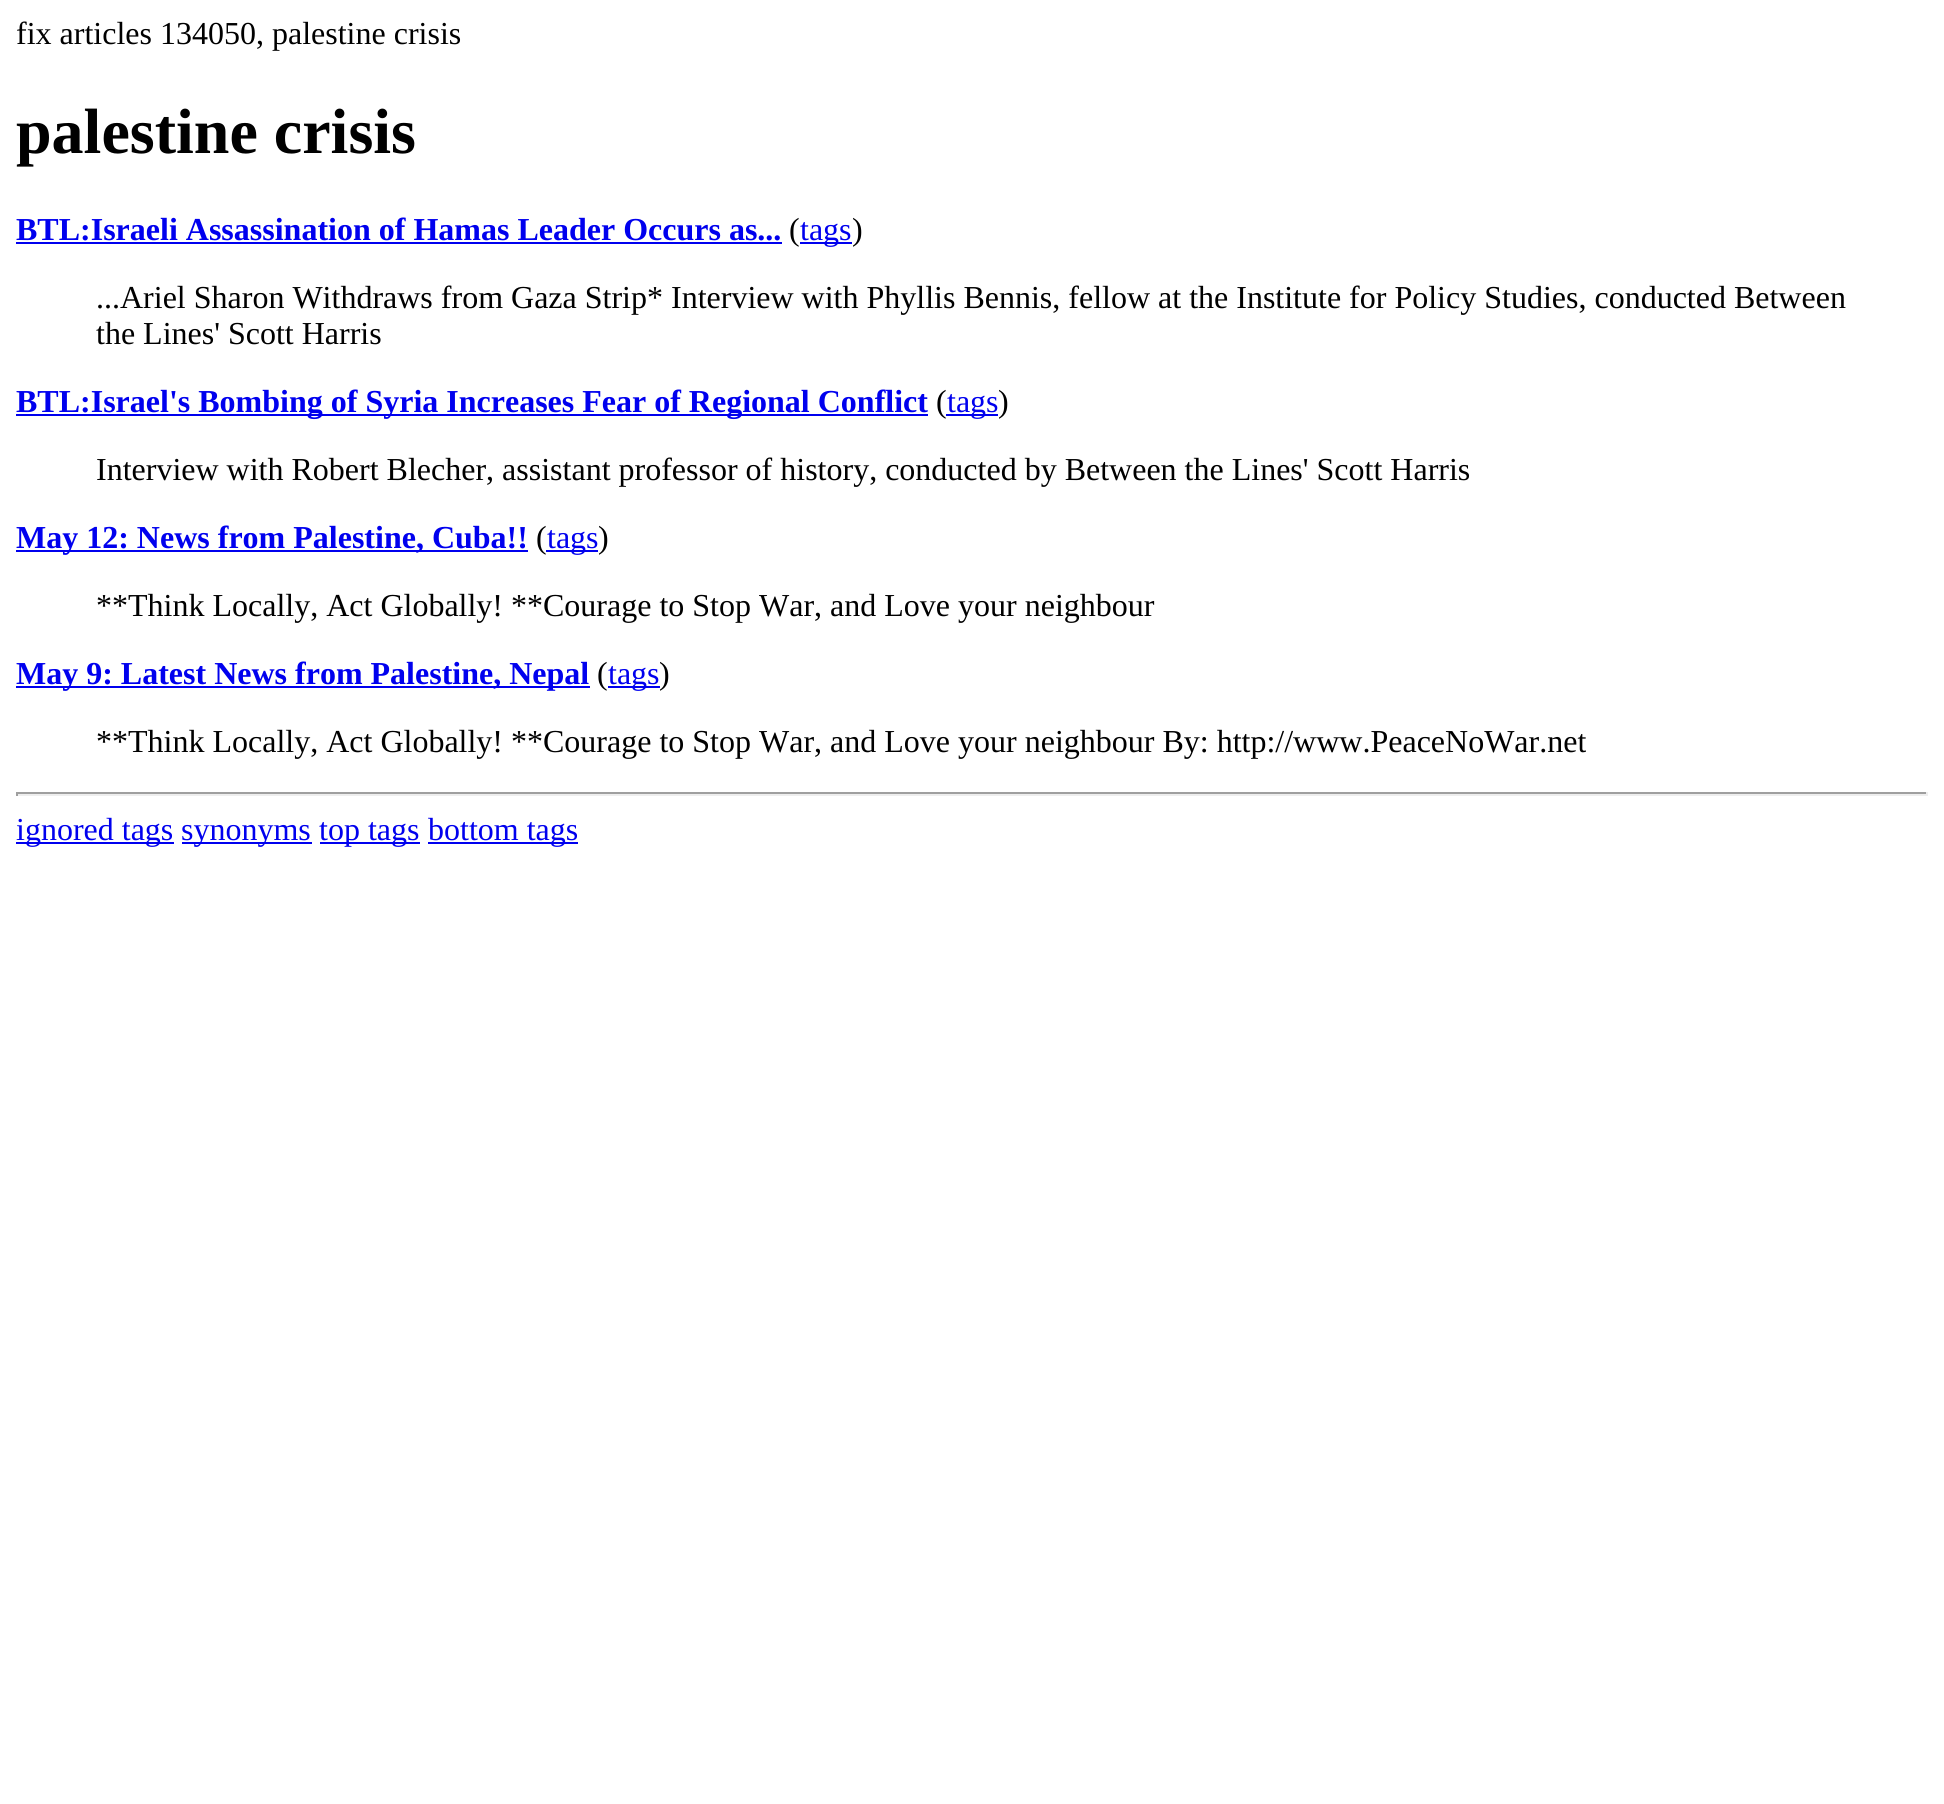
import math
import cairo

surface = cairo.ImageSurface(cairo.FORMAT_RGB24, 1944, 1804)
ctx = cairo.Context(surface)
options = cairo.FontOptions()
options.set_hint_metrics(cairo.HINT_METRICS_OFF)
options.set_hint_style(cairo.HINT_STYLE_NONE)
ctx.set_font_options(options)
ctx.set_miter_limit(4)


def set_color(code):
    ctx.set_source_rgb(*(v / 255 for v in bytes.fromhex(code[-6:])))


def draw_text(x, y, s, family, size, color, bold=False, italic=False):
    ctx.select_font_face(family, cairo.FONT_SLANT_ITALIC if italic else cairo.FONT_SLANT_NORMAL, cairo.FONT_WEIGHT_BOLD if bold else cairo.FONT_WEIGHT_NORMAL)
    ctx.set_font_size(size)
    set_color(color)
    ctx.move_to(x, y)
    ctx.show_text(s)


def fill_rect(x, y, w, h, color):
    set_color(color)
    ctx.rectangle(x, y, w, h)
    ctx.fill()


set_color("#ffffff")
ctx.paint()
draw_text(16, 44, "fix articles 134050, palestine crisis", "Liberation Serif", 32, "#000000")
draw_text(16, 153, "palestine crisis", "Liberation Serif", 64, "#000000", bold=True)
draw_text(16, 240, "BTL:Israeli Assassination of Hamas Leader Occurs as...", "Liberation Serif", 32, "#0000ee", bold=True)
fill_rect(16, 242, 766, 2, "#0000ee")
draw_text(789, 240, "(", "Liberation Serif", 32, "#000000")
fill_rect(800, 242, 52, 2, "#0000ee")
draw_text(800, 240, "tags", "Liberation Serif", 32, "#0000ee")
draw_text(852, 240, ")", "Liberation Serif", 32, "#000000")
draw_text(96, 308, "...Ariel Sharon Withdraws from Gaza Strip* Interview with Phyllis Bennis, fellow at the Institute for Policy Studies, conducted Between", "Liberation Serif", 32, "#000000")
draw_text(96, 344, "the Lines' Scott Harris", "Liberation Serif", 32, "#000000")
fill_rect(16, 414, 912, 2, "#0000ee")
draw_text(16, 412, "BTL:Israel's Bombing of Syria Increases Fear of Regional Conflict", "Liberation Serif", 32, "#0000ee", bold=True)
draw_text(936, 412, "(", "Liberation Serif", 32, "#000000")
fill_rect(946, 414, 52, 2, "#0000ee")
draw_text(947, 412, "tags", "Liberation Serif", 32, "#0000ee")
draw_text(998, 412, ")", "Liberation Serif", 32, "#000000")
draw_text(96, 480, "Interview with Robert Blecher, assistant professor of history, conducted by Between the Lines' Scott Harris", "Liberation Serif", 32, "#000000")
fill_rect(16, 550, 512, 2, "#0000ee")
draw_text(16, 548, "May 12: News from Palestine, Cuba!!", "Liberation Serif", 32, "#0000ee", bold=True)
draw_text(536, 548, "(", "Liberation Serif", 32, "#000000")
fill_rect(546, 550, 52, 2, "#0000ee")
draw_text(547, 548, "tags", "Liberation Serif", 32, "#0000ee")
draw_text(598, 548, ")", "Liberation Serif", 32, "#000000")
draw_text(96, 616, "**Think Locally, Act Globally! **Courage to Stop War, and Love your neighbour", "Liberation Serif", 32, "#000000")
fill_rect(16, 686, 574, 2, "#0000ee")
draw_text(16, 684, "May 9: Latest News from Palestine, Nepal", "Liberation Serif", 32, "#0000ee", bold=True)
draw_text(597, 684, "(", "Liberation Serif", 32, "#000000")
fill_rect(608, 686, 52, 2, "#0000ee")
draw_text(608, 684, "tags", "Liberation Serif", 32, "#0000ee")
draw_text(659, 684, ")", "Liberation Serif", 32, "#000000")
draw_text(96, 752, "**Think Locally, Act Globally! **Courage to Stop War, and Love your neighbour By: http://www.PeaceNoWar.net", "Liberation Serif", 32, "#000000")
fill_rect(16, 792, 1912, 2, "#9f9f9f")
fill_rect(1926, 792, 2, 4, "#eeeeee")
fill_rect(16, 794, 1912, 2, "#eeeeee")
fill_rect(16, 792, 2, 4, "#9f9f9f")
fill_rect(16, 842, 158, 2, "#0000ee")
draw_text(16, 840, "ignored tags", "Liberation Serif", 32, "#0000ee")
fill_rect(182, 842, 130, 2, "#0000ee")
draw_text(181, 840, "synonyms", "Liberation Serif", 32, "#0000ee")
fill_rect(320, 842, 100, 2, "#0000ee")
draw_text(319, 840, "top tags", "Liberation Serif", 32, "#0000ee")
fill_rect(428, 842, 150, 2, "#0000ee")
draw_text(428, 840, "bottom tags", "Liberation Serif", 32, "#0000ee")
surface.write_to_png("output.png")
